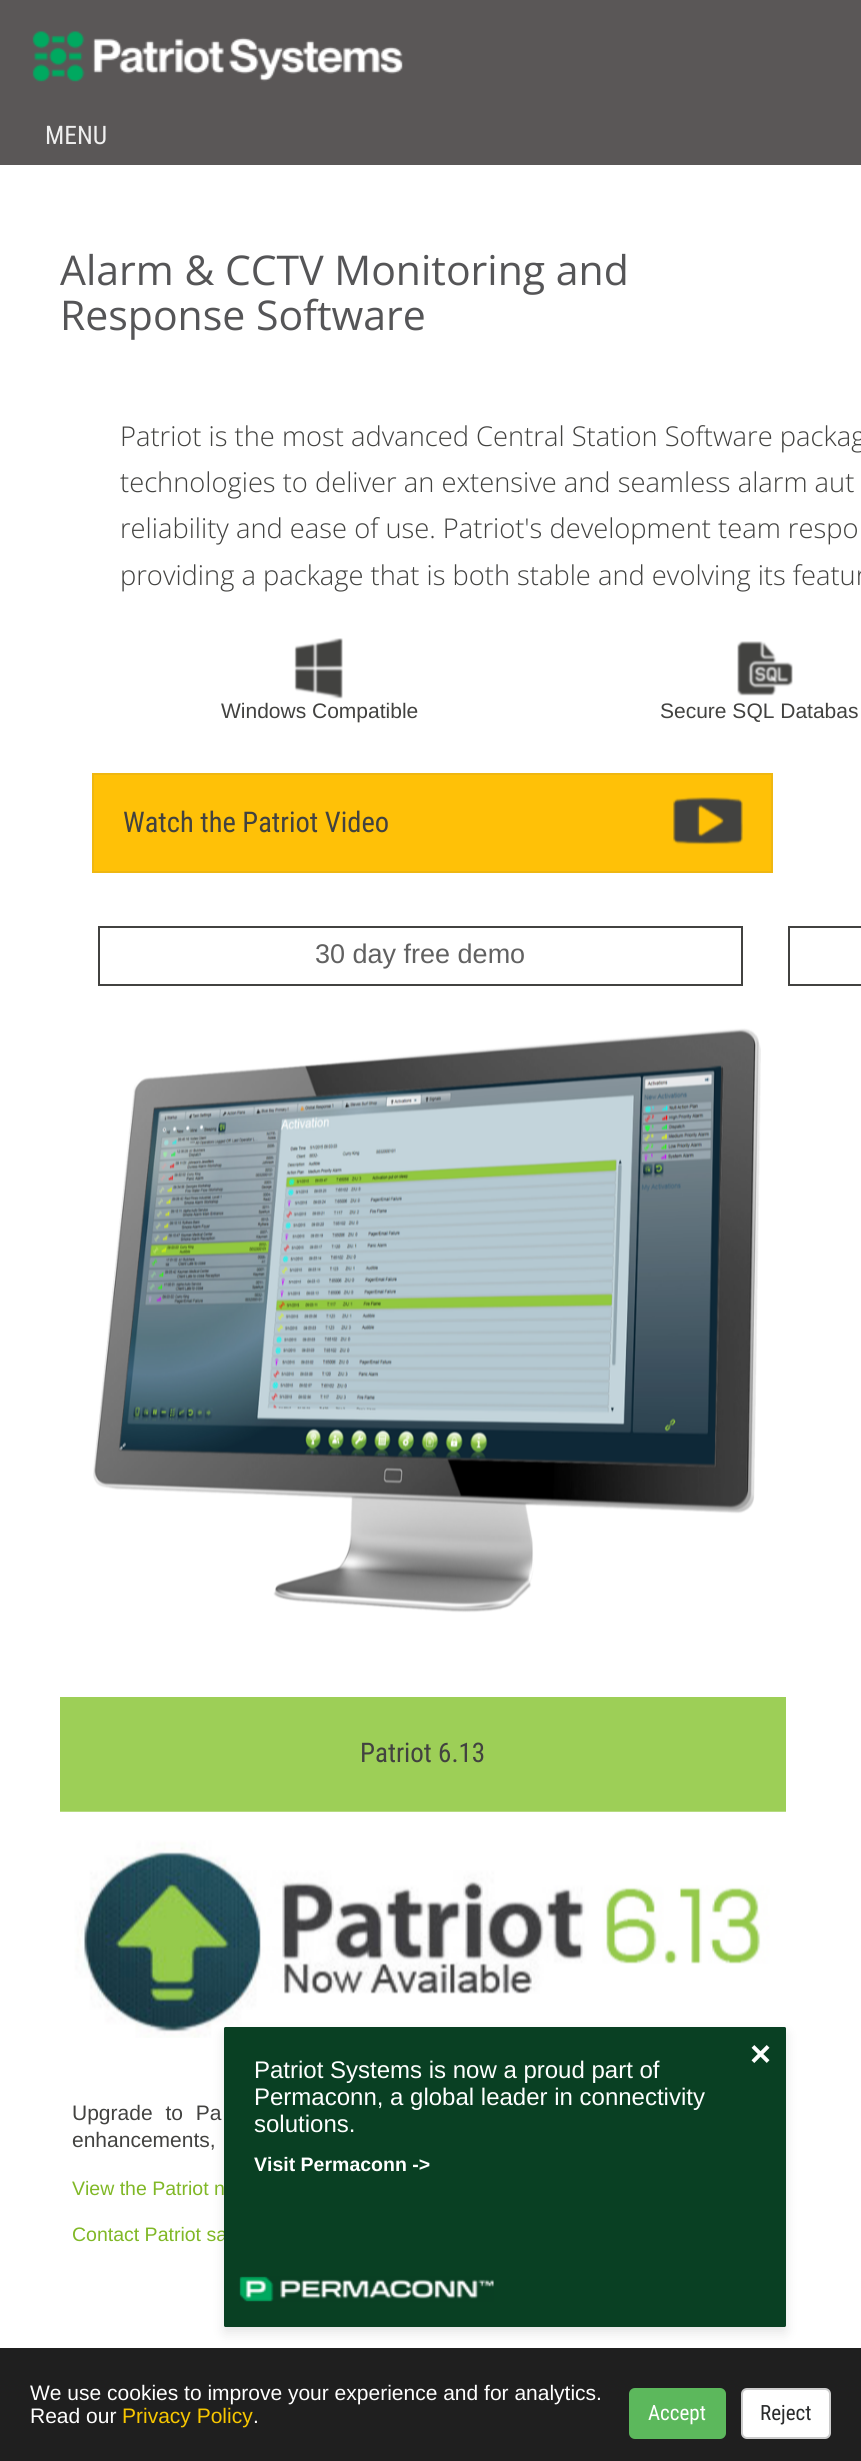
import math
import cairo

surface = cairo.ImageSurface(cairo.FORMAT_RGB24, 861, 2461)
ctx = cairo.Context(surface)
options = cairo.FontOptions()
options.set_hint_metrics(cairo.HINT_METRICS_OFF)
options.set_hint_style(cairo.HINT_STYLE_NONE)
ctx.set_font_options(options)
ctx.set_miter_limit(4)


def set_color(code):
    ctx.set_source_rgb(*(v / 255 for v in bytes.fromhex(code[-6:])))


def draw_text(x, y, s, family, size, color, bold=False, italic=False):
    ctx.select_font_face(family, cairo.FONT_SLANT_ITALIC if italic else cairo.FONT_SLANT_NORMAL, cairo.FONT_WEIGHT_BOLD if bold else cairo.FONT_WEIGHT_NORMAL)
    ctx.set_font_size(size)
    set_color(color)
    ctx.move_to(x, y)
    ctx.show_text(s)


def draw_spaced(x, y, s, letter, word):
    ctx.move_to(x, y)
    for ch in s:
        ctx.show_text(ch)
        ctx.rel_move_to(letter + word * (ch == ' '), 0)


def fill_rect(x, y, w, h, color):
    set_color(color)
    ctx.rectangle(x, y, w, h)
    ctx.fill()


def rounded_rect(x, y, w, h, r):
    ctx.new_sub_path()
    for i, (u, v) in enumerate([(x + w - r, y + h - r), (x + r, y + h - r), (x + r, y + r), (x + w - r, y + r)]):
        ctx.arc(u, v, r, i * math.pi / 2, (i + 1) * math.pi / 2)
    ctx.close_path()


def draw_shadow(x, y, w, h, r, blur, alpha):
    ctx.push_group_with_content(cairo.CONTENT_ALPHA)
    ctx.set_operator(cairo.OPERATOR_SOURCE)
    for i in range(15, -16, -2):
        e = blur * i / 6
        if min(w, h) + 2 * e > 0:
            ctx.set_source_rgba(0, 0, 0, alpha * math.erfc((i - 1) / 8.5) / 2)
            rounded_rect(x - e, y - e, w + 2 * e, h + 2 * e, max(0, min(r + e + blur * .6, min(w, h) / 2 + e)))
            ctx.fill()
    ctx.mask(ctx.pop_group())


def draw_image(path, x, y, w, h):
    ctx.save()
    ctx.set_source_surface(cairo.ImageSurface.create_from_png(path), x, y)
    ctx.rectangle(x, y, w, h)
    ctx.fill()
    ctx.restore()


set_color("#ffffff")
ctx.paint()
fill_rect(0, 0, 861, 165, "#5a5757")
draw_image("assets/img1.png", 32, 31, 371, 51)
draw_text(45, 144, "MENU", "Roboto Condensed", 25.5, "#efefef")
draw_text(60, 285, "Alarm & CCTV Monitoring and", "Open Sans", 41, "#555557")
draw_text(60, 330, "Response Software", "Open Sans", 41, "#555557")
draw_text(120, 446, "Patriot is the most advanced Central Station Software packag", "Open Sans Light", 27.3, "#424240")
draw_text(120, 492, "technologies to deliver an extensive and seamless alarm aut", "Open Sans Light", 27.3, "#424240")
draw_text(120, 538, "reliability and ease of use. Patriot's development team respo", "Open Sans Light", 27.3, "#424240")
draw_text(120, 585, "providing a package that is both stable and evolving its featur", "Open Sans Light", 27.3, "#424240")
draw_image("assets/img2.png", 294, 638, 49, 61)
draw_text(221, 718, "Windows Compatible", "Liberation Sans", 21, "#424240")
draw_image("assets/img3.png", 737, 641, 56, 55)
draw_text(660, 718, "Secure SQL Databas", "Liberation Sans", 21, "#424240")
fill_rect(94, 775, 677, 96, "#ffc107")
draw_image("assets/img4.png", 673, 797, 70, 48)
ctx.rectangle(93, 774, 679, 98)
set_color("#efb711")
ctx.stroke()
draw_text(123, 832, "Watch the Patriot Video", "Roboto Condensed", 28.5, "#424240")
ctx.rectangle(99, 927, 643, 58)
ctx.stroke()
draw_text(315, 963, "30 day free demo", "Liberation Sans", 27, "#616161")
ctx.rectangle(789, 927, 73, 58)
set_color("#424240")
ctx.stroke()
draw_image("assets/img5.png", 93, 1028, 668, 585)
fill_rect(60, 1697, 726, 115, "#9dcf57")
draw_text(360, 1762, "Patriot 6.13", "Roboto Condensed", 27, "#424240")
draw_image("assets/img6.png", 60, 1811, 726, 227)
ctx.select_font_face("Liberation Sans")
ctx.set_font_size(21)
draw_spaced(72, 2120, "Upgrade to Pa", 0, 7)
draw_text(72, 2147, "enhancements,", "Liberation Sans", 21, "#424240")
draw_text(72, 2195, "View the Patriot n", "Liberation Sans", 19.5, "#80b826")
draw_text(72, 2241, "Contact Patriot sa", "Liberation Sans", 19.5, "#80b826")
set_color("#000000")
draw_shadow(224, 2033, 562, 300, 1.5, 6, 0.1)
set_color("#094023")
rounded_rect(224, 2027, 562, 300, 1.5)
ctx.fill()
draw_text(750, 2066, "×", "Liberation Sans", 36, "#ffffff", bold=True)
draw_text(254, 2078, "Patriot Systems is now a proud part of", "Liberation Sans", 24, "#ffffff")
draw_text(254, 2105, "Permaconn, a global leader in connectivity", "Liberation Sans", 24, "#ffffff")
draw_text(254, 2132, "solutions.", "Liberation Sans", 24, "#ffffff")
draw_text(254, 2171, "Visit Permaconn ->", "Liberation Sans", 19.5, "#ffffff", bold=True)
draw_image("assets/img7.png", 239, 2276, 255, 26)
fill_rect(0, 2348, 861, 113, "#1f1f1f")
draw_text(30, 2400, "We use cookies to improve your experience and for analytics.", "Liberation Sans", 21, "#ffffff")
draw_text(30, 2423, "Read our", "Liberation Sans", 21, "#ffffff")
draw_text(122, 2423, "Privacy Policy", "Liberation Sans", 21, "#f7c600")
draw_text(253, 2423, ".", "Liberation Sans", 21, "#ffffff")
set_color("#5cb85c")
rounded_rect(630, 2389, 95, 49, 5)
ctx.fill_preserve()
ctx.stroke()
draw_text(648, 2420, "Accept", "Roboto Condensed", 21, "#ffffff")
rounded_rect(742, 2389, 88, 49, 5)
ctx.fill_preserve()
set_color("#cccccc")
ctx.stroke()
draw_text(760, 2420, "Reject", "Roboto Condensed", 21, "#292b2c")
surface.write_to_png("output.png")
